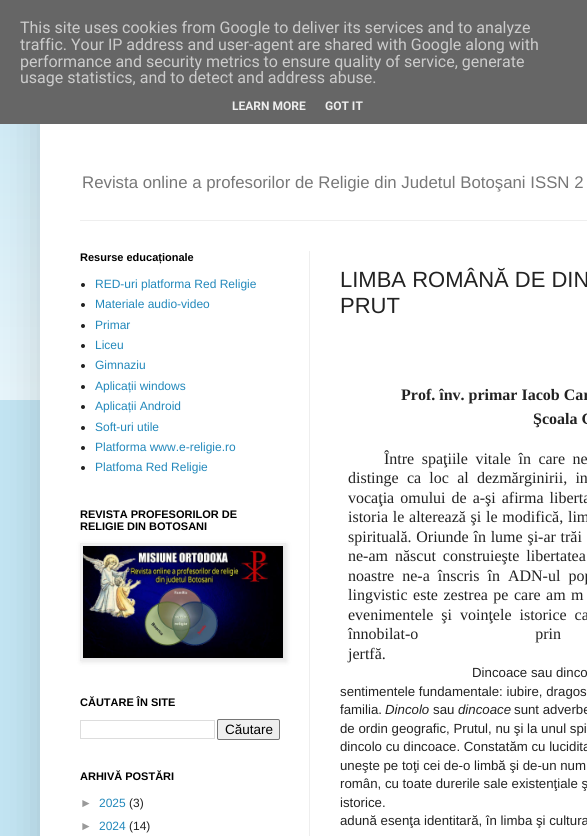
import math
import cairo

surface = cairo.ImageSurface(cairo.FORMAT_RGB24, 587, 836)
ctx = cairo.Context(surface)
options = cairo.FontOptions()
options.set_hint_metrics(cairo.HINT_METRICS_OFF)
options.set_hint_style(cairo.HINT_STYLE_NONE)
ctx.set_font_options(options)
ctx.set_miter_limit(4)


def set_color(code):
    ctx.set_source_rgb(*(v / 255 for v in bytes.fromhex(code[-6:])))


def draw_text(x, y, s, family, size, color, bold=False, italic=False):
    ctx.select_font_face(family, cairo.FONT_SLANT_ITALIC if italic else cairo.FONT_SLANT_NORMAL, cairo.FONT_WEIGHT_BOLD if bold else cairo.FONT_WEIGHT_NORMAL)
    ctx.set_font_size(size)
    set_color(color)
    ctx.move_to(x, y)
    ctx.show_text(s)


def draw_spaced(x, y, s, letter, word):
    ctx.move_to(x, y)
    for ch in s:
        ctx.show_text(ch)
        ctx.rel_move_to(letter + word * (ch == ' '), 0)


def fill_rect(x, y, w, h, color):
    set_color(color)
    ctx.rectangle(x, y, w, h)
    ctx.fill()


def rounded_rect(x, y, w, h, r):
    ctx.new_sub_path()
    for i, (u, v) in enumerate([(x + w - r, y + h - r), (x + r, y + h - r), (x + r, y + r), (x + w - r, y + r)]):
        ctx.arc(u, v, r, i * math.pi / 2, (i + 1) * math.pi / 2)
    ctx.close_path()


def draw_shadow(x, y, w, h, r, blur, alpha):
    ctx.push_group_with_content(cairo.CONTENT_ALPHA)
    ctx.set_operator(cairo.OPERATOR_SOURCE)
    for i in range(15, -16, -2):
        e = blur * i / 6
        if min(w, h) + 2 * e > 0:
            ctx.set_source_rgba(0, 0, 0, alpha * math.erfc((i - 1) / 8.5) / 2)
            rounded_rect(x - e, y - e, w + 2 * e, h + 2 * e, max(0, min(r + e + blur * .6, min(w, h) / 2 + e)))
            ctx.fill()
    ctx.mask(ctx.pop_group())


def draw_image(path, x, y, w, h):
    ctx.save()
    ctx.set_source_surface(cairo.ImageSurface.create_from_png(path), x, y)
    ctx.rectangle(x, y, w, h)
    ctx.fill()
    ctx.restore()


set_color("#c2e4f2")
ctx.paint()
draw_image("assets/img1.png", 0, 124, 40, 276)
set_color("#000000")
draw_shadow(40, 30, 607, 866, 0, 20, 0.15)
fill_rect(0, 0, 587, 124, "#666666")
draw_text(20, 33, "This site uses cookies from Google to deliver its services and to analyze", "Roboto", 16, "#cccccc")
draw_text(20, 50, "traffic. Your IP address and user-agent are shared with Google along with", "Roboto", 16, "#cccccc")
draw_text(20, 67, "performance and security metrics to ensure quality of service, generate", "Roboto", 16, "#cccccc")
draw_text(20, 83, "usage statistics, and to detect and address abuse.", "Roboto", 16, "#cccccc")
draw_text(232, 110, "LEARN MORE", "Roboto", 12, "#eeeeee", bold=True)
draw_text(325, 110, "GOT IT", "Roboto", 12, "#eeeeee", bold=True)
fill_rect(40, 124, 547, 712, "#ffffff")
draw_text(82, 188, "Revista online a profesorilor de Religie din Judetul Botoşani ISSN 2", "Liberation Sans", 16.8, "#777777")
fill_rect(80, 220, 507, 1, "#eeeeee")
fill_rect(309, 251, 1, 585, "#eeeeee")
draw_text(80, 261, "Resurse educaționale", "Liberation Sans", 11, "#000000", bold=True)
set_color("#222222")
ctx.new_path()
ctx.arc(83, 285, 2, 0, 2 * math.pi)
ctx.fill()
draw_text(95, 288, "RED-uri platforma Red Religie", "Liberation Sans", 12, "#2288bb")
set_color("#222222")
ctx.new_path()
ctx.arc(83, 305, 2, 0, 2 * math.pi)
ctx.fill()
draw_text(95, 308, "Materiale audio-video", "Liberation Sans", 12, "#2288bb")
set_color("#222222")
ctx.new_path()
ctx.arc(83, 326, 2, 0, 2 * math.pi)
ctx.fill()
draw_text(95, 329, "Primar", "Liberation Sans", 12, "#2288bb")
set_color("#222222")
ctx.new_path()
ctx.arc(83, 346, 2, 0, 2 * math.pi)
ctx.fill()
draw_text(95, 349, "Liceu", "Liberation Sans", 12, "#2288bb")
set_color("#222222")
ctx.new_path()
ctx.arc(83, 366, 2, 0, 2 * math.pi)
ctx.fill()
draw_text(95, 369, "Gimnaziu", "Liberation Sans", 12, "#2288bb")
set_color("#222222")
ctx.new_path()
ctx.arc(83, 387, 2, 0, 2 * math.pi)
ctx.fill()
draw_text(95, 390, "Aplicații windows", "Liberation Sans", 12, "#2288bb")
set_color("#222222")
ctx.new_path()
ctx.arc(83, 407, 2, 0, 2 * math.pi)
ctx.fill()
draw_text(95, 410, "Aplicații Android", "Liberation Sans", 12, "#2288bb")
set_color("#222222")
ctx.new_path()
ctx.arc(83, 428, 2, 0, 2 * math.pi)
ctx.fill()
draw_text(95, 431, "Soft-uri utile", "Liberation Sans", 12, "#2288bb")
set_color("#222222")
ctx.new_path()
ctx.arc(83, 448, 2, 0, 2 * math.pi)
ctx.fill()
draw_text(95, 451, "Platforma www.e-religie.ro", "Liberation Sans", 12, "#2288bb")
set_color("#222222")
ctx.new_path()
ctx.arc(83, 468, 2, 0, 2 * math.pi)
ctx.fill()
draw_text(95, 471, "Platfoma Red Religie", "Liberation Sans", 12, "#2288bb")
draw_text(80, 518, "REVISTA PROFESORILOR DE", "Liberation Sans", 11, "#000000", bold=True)
draw_text(80, 530, "RELIGIE DIN BOTOSANI", "Liberation Sans", 11, "#000000", bold=True)
set_color("#000000")
draw_shadow(81, 544, 206, 118, 0, 2.5, 0.1)
ctx.rectangle(80.5, 543.5, 205, 117)
set_color("#eeeeee")
ctx.set_line_width(1)
ctx.stroke()
draw_image("assets/img2.png", 83, 546, 200, 112)
draw_text(80, 706, "CĂUTARE ÎN SITE", "Liberation Sans", 11, "#000000", bold=True)
ctx.rectangle(80.5, 720.5, 134, 18)
set_color("#dddddd")
ctx.stroke()
set_color("#efefef")
rounded_rect(217.5, 719.5, 62, 20, 1.5)
ctx.fill_preserve()
set_color("#767676")
ctx.stroke()
draw_text(225, 734, "Căutare", "Liberation Sans", 13.5, "#000000")
draw_text(80, 780, "ARHIVĂ POSTĂRI", "Liberation Sans", 11, "#000000", bold=True)
draw_text(80, 807, "►", "Liberation Sans", 12, "#999999")
draw_text(99, 807, "2025", "Liberation Sans", 12, "#2288bb")
draw_text(129, 807, "(3)", "Liberation Sans", 12, "#222222")
draw_text(80, 830, "►", "Liberation Sans", 12, "#999999")
draw_text(99, 830, "2024", "Liberation Sans", 12, "#2288bb")
draw_text(129, 830, "(14)", "Liberation Sans", 12, "#222222")
draw_text(340, 287, "LIMBA ROMÂNĂ DE DIN", "Liberation Sans", 22, "#222222")
draw_text(340, 313, "PRUT", "Liberation Sans", 22, "#222222")
draw_text(401, 400, "Prof. înv. primar Iacob Car", "Liberation Serif", 16, "#222222", bold=True)
draw_text(533, 424, "Şcoala G", "Liberation Serif", 16, "#222222", bold=True)
ctx.select_font_face("Liberation Serif")
draw_spaced(384, 464, "Între spaţiile vitale în care ne", 0, 3.5)
draw_spaced(348, 483, "distinge ca loc al dezmărginirii, in", 0, 4.25)
draw_spaced(348, 503, "vocaţia omului de a-şi afirma liberta", 0, 2)
draw_spaced(348, 522, "istoria le alterează şi le modifică, lim", 0, 0.75)
draw_spaced(348, 542, "spirituală. Oriunde în lume şi-ar trăi", 0, 0.75)
draw_spaced(348, 561, "ne-am născut construieşte libertatea", 0, 3)
draw_spaced(348, 581, "noastre ne-a înscris în ADN-ul pop", 0, 4)
draw_spaced(348, 600, "lingvistic este zestrea pe care am m", 0, 1.5)
draw_spaced(348, 620, "evenimentele şi voinţele istorice ca", 0, 4)
draw_spaced(348, 639, "înnobilat-o prin", 0, 113)
draw_text(348, 659, "jertfă.", "Liberation Serif", 16, "#222222")
draw_text(472, 677, "Dincoace sau dinco", "Liberation Sans", 13.25, "#222222")
draw_text(340, 696, "sentimentele fundamentale: iubire, dragos", "Liberation Sans", 13.25, "#222222")
draw_text(340, 714, "familia.", "Liberation Sans", 13.25, "#222222")
draw_text(385, 714, "Dincolo", "Liberation Sans", 13.25, "#222222", italic=True)
draw_text(433, 714, "sau", "Liberation Sans", 13.25, "#222222")
draw_text(458, 714, "dincoace", "Liberation Sans", 13.25, "#222222", italic=True)
draw_text(514, 714, "sunt adverbe", "Liberation Sans", 13.25, "#222222")
draw_text(340, 733, "de ordin geografic, Prutul, nu şi la unul spi", "Liberation Sans", 13.25, "#222222")
draw_text(340, 751, "dincolo cu dincoace. Constatăm cu lucidita", "Liberation Sans", 13.25, "#222222")
draw_text(340, 770, "uneşte pe toţi cei de-o limbă şi de-un num", "Liberation Sans", 13.25, "#222222")
draw_text(340, 788, "român, cu toate durerile sale existenţiale ş", "Liberation Sans", 13.25, "#222222")
draw_text(340, 807, "istorice.", "Liberation Sans", 13.25, "#222222")
draw_text(340, 825, "adună esenţa identitară, în limba şi cultura", "Liberation Sans", 13.25, "#222222")
surface.write_to_png("output.png")
